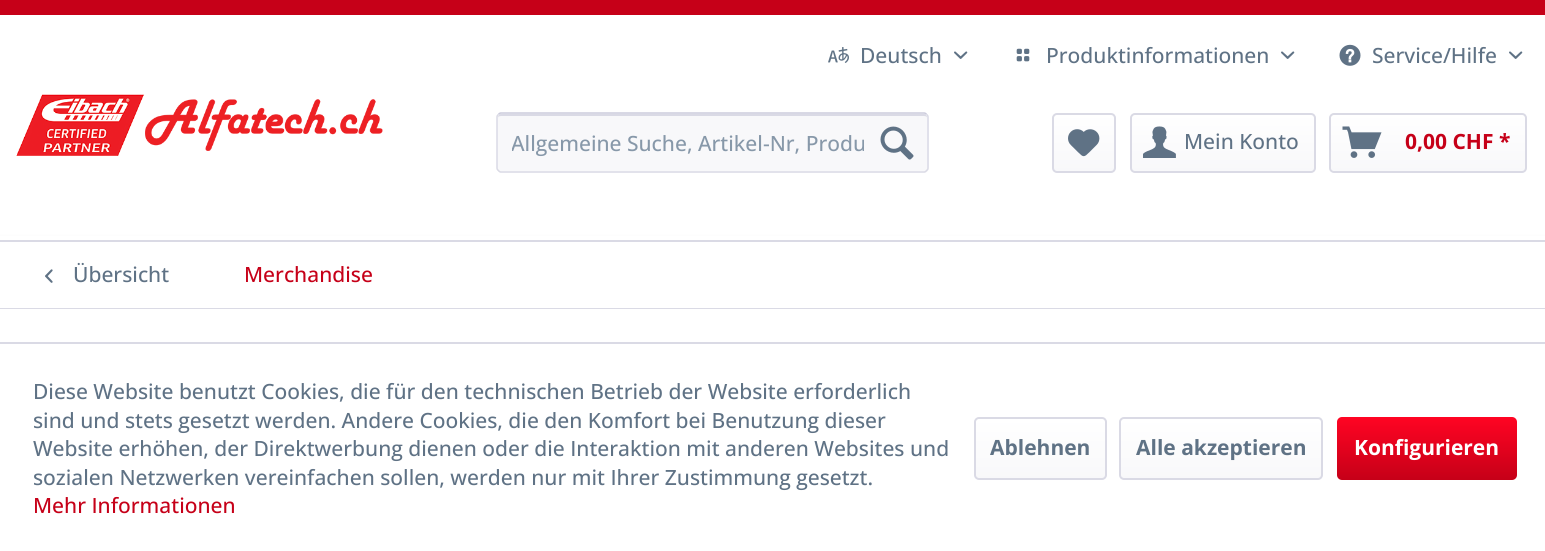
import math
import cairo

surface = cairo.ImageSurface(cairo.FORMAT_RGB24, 1545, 551)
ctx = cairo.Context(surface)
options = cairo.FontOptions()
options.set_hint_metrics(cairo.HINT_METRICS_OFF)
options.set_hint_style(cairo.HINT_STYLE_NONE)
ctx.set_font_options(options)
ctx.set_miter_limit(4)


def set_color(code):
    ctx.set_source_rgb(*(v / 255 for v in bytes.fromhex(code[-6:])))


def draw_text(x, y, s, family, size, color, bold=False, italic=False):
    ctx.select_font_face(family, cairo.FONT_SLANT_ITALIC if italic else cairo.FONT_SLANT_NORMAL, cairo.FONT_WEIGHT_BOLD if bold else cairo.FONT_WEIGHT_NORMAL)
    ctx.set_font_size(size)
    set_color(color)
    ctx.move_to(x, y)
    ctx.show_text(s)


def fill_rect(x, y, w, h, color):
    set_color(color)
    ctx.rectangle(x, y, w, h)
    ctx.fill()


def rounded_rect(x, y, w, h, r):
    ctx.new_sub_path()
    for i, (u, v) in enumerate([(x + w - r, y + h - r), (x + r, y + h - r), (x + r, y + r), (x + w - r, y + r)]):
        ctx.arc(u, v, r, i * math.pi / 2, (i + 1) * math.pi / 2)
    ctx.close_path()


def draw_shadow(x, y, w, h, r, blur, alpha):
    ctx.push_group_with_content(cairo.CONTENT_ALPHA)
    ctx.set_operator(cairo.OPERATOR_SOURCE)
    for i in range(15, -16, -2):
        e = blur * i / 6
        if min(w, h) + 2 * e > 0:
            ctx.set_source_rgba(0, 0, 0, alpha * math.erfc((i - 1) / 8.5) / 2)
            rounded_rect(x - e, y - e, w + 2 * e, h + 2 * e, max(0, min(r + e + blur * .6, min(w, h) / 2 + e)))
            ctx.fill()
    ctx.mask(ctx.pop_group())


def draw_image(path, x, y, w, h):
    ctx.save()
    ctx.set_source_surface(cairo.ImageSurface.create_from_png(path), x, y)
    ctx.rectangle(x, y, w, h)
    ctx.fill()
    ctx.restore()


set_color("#ffffff")
ctx.paint()
fill_rect(0, 0, 1545, 15, "#c60018")
fill_rect(0, 240, 1545, 2, "#dadae5")
draw_image("assets/img1.png", 828, 47, 21, 16)
draw_text(860, 63, "Deutsch", "Open Sans Medium", 21, "#5f7285")
draw_image("assets/img2.png", 954, 51, 14, 8)
draw_image("assets/img3.png", 1016, 48, 14, 14)
draw_text(1046, 63, "Produktinformationen", "Open Sans Medium", 21, "#5f7285")
draw_image("assets/img2.png", 1281, 51, 14, 8)
draw_image("assets/img4.png", 1339, 44, 22, 22)
draw_text(1372, 63, "Service/Hilfe", "Open Sans Medium", 21, "#5f7285")
draw_image("assets/img2.png", 1509, 51, 14, 8)
set_color("#dadae5")
draw_shadow(-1, 240, 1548, 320, 0, 3, 1)
fill_rect(0, 236, 1545, 4, "#ffffff")
draw_image("assets/img5.png", 16, 94, 367, 62)
set_color("#f8f8fa")
rounded_rect(497, 113, 432, 60, 5)
ctx.fill()
set_color("#dadae5")
ctx.new_path()
ctx.move_to(501, 116)
ctx.line_to(924, 116)
ctx.curve_to(926, 116, 927, 117, 927, 118)
ctx.curve_to(927, 116, 926, 114, 924, 114)
ctx.line_to(501, 114)
ctx.curve_to(499, 114, 498, 116, 498, 118)
ctx.curve_to(498, 117, 499, 116, 501, 116)
ctx.close_path()
ctx.fill()
ctx.new_path()
ctx.move_to(498.5, 114.5)
ctx.curve_to(499, 113.5, 500, 113, 501, 113)
ctx.line_to(924, 113)
ctx.curve_to(925, 113, 926, 113.5, 926.5, 114.5)
set_color("#cbcbdb")
ctx.set_line_width(1.5)
ctx.stroke()
ctx.new_path()
ctx.move_to(926.5, 114.5)
ctx.curve_to(927.5, 115, 928, 116, 928, 117)
ctx.line_to(928, 168)
ctx.curve_to(928, 169, 927.5, 170, 926.5, 170.5)
ctx.curve_to(926, 171.5, 925, 172, 924, 172)
ctx.line_to(501, 172)
ctx.curve_to(500, 172, 499, 171.5, 498.5, 170.5)
ctx.curve_to(497.5, 170, 497, 169, 497, 168)
ctx.line_to(497, 117)
ctx.curve_to(497, 116, 497.5, 115, 498.5, 114.5)
set_color("#dadae5")
ctx.stroke()
ctx.save()
ctx.rectangle(512, 129, 352, 29)
ctx.clip()
draw_text(511, 151, "Allgemeine Suche, Artikel-Nr, Produ", "Open Sans Medium", 21, "#8798a9")
ctx.restore()
draw_image("assets/img6.png", 880, 126, 34, 34)
gradient = cairo.LinearGradient(1084, 114, 1084, 171)
gradient.add_color_stop_rgba(0, 1, 1, 1, 1)
gradient.add_color_stop_rgba(1, 0.973, 0.973, 0.98, 1)
ctx.set_source(gradient)
rounded_rect(1053, 114, 62, 57, 3)
ctx.fill()
rounded_rect(1053, 114, 62, 58, 4)
set_color("#dadae5")
ctx.set_line_width(2)
ctx.stroke()
draw_image("assets/img7.png", 1068, 129, 32, 28)
gradient = cairo.LinearGradient(1223, 114, 1223, 171)
gradient.add_color_stop_rgba(0, 1, 1, 1, 1)
gradient.add_color_stop_rgba(1, 0.973, 0.973, 0.98, 1)
ctx.set_source(gradient)
rounded_rect(1131, 114, 183, 57, 3)
ctx.fill()
rounded_rect(1131, 114, 184, 58, 4)
set_color("#dadae5")
ctx.stroke()
draw_image("assets/img8.png", 1143, 126, 33, 32)
draw_text(1184, 149, "Mein Konto", "Open Sans Medium", 21, "#5f7285")
gradient = cairo.LinearGradient(1428, 114, 1428, 171)
gradient.add_color_stop_rgba(0, 1, 1, 1, 1)
gradient.add_color_stop_rgba(1, 0.973, 0.973, 0.98, 1)
ctx.set_source(gradient)
rounded_rect(1331, 114, 195, 57, 3)
ctx.fill()
rounded_rect(1330, 114, 196, 58, 4)
set_color("#dadae5")
ctx.stroke()
draw_image("assets/img9.png", 1342, 126, 40, 32)
draw_text(1405, 149, "0,00 CHF *", "Open Sans", 21, "#c60018", bold=True)
fill_rect(0, 242, 1545, 66, "#ffffff")
fill_rect(0, 308, 1545, 1, "#dadae5")
draw_image("assets/img10.png", 45, 269, 8, 14)
draw_text(73, 282, "Übersicht", "Open Sans Medium", 21, "#5f7285")
draw_text(244, 282, "Merchandise", "Open Sans Medium", 21, "#c60018")
fill_rect(0, 309, 1545, 33, "#ffffff")
fill_rect(0, 344, 1545, 207, "#ffffff")
fill_rect(0, 342, 1545, 2, "#dadae5")
draw_text(33, 399, "Diese Website benutzt Cookies, die für den technischen Betrieb der Website erforderlich", "Open Sans Medium", 21, "#5f7285")
draw_text(33, 428, "sind und stets gesetzt werden. Andere Cookies, die den Komfort bei Benutzung dieser", "Open Sans Medium", 21, "#5f7285")
draw_text(33, 456, "Website erhöhen, der Direktwerbung dienen oder die Interaktion mit anderen Websites und", "Open Sans Medium", 21, "#5f7285")
draw_text(33, 485, "sozialen Netzwerken vereinfachen sollen, werden nur mit Ihrer Zustimmung gesetzt.", "Open Sans Medium", 21, "#5f7285")
draw_text(33, 513, "Mehr Informationen", "Open Sans Medium", 21, "#c60018")
gradient = cairo.LinearGradient(1040, 419, 1040, 479)
gradient.add_color_stop_rgba(0, 1, 1, 1, 1)
gradient.add_color_stop_rgba(1, 0.973, 0.973, 0.98, 1)
ctx.set_source(gradient)
rounded_rect(975, 419, 131, 60, 3)
ctx.fill()
rounded_rect(975, 418, 131, 61, 4)
set_color("#dadae5")
ctx.stroke()
draw_text(990, 455, "Ablehnen", "Open Sans", 21, "#5f7285", bold=True)
gradient = cairo.LinearGradient(1221, 419, 1221, 479)
gradient.add_color_stop_rgba(0, 1, 1, 1, 1)
gradient.add_color_stop_rgba(1, 0.973, 0.973, 0.98, 1)
ctx.set_source(gradient)
rounded_rect(1121, 419, 201, 60, 3)
ctx.fill()
rounded_rect(1120, 418, 202, 61, 4)
set_color("#dadae5")
ctx.stroke()
draw_text(1136, 455, "Alle akzeptieren", "Open Sans", 21, "#5f7285", bold=True)
gradient = cairo.LinearGradient(1427, 417, 1427, 480)
gradient.add_color_stop_rgba(0, 1, 0.016, 0.137, 1)
gradient.add_color_stop_rgba(1, 0.776, 0, 0.094, 1)
ctx.set_source(gradient)
rounded_rect(1337, 417, 180, 63, 5)
ctx.fill()
draw_text(1354, 455, "Konfigurieren", "Open Sans", 21, "#ffffff", bold=True)
surface.write_to_png("output.png")
